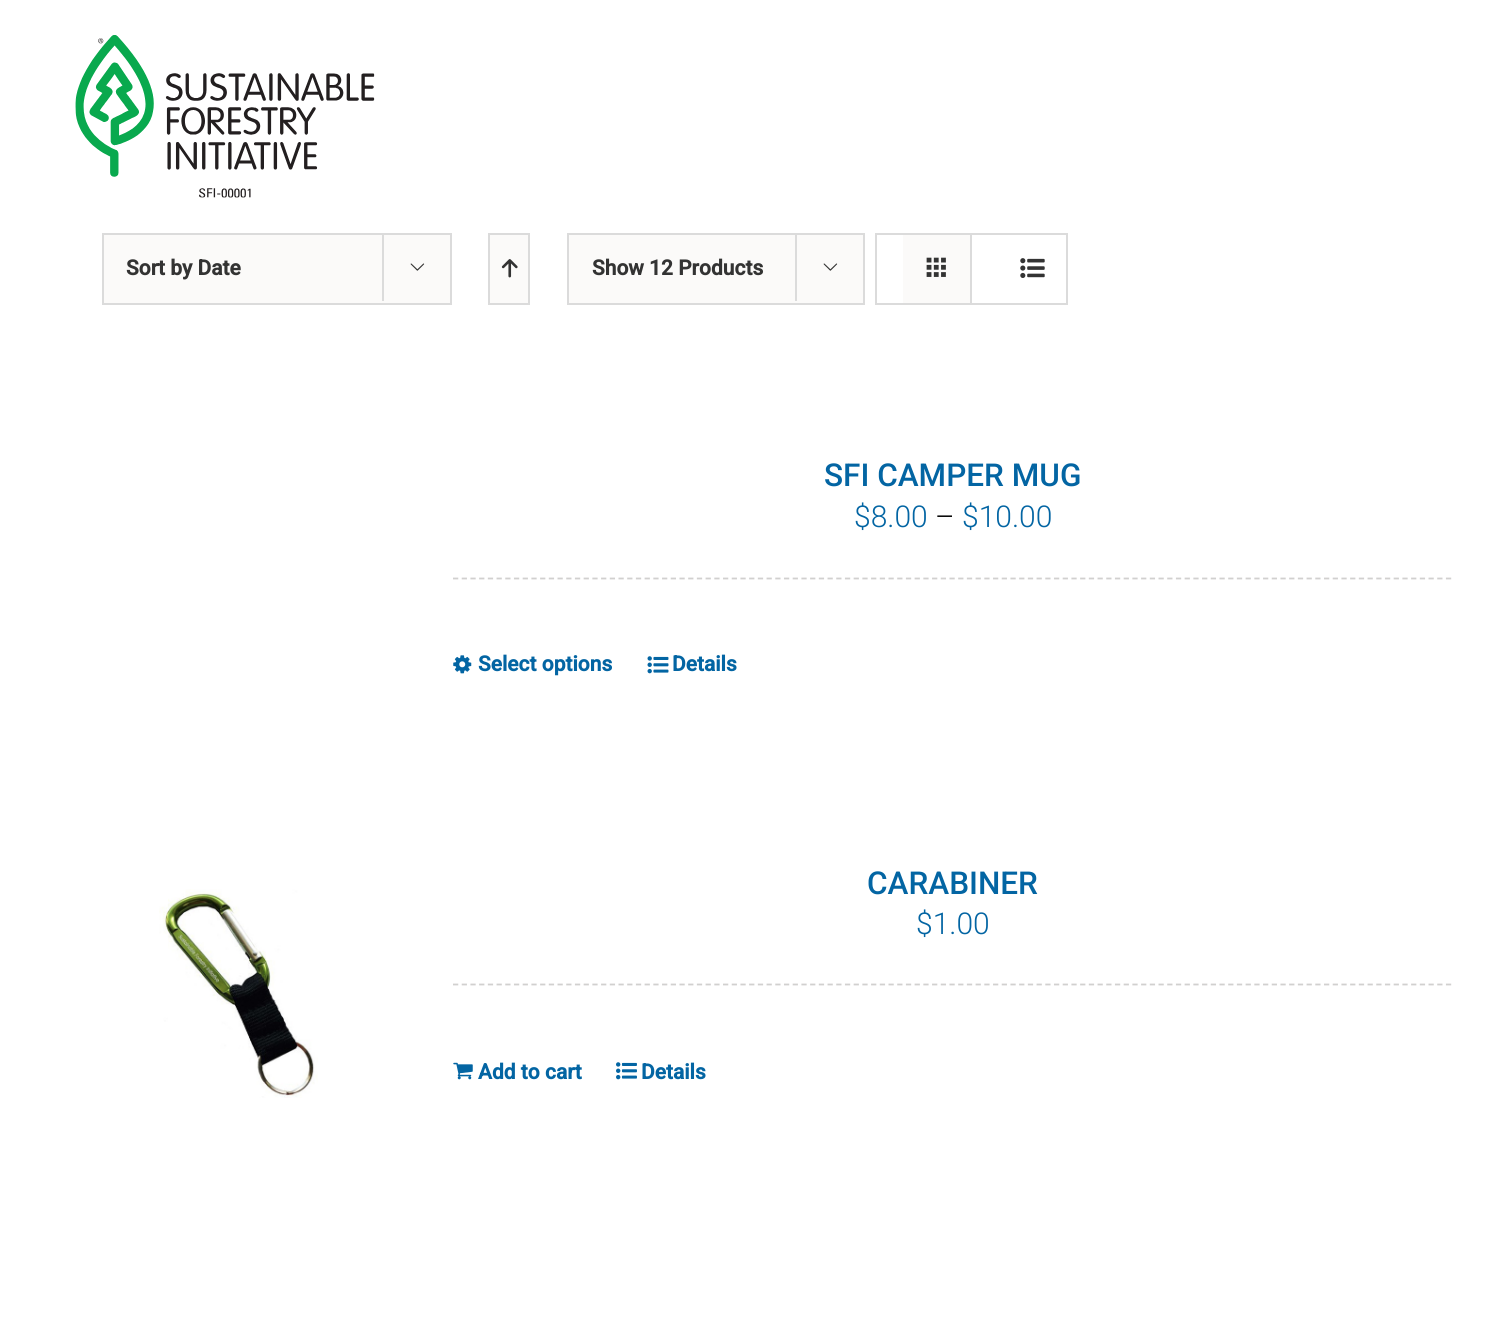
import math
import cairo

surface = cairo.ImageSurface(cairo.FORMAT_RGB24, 1509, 1318)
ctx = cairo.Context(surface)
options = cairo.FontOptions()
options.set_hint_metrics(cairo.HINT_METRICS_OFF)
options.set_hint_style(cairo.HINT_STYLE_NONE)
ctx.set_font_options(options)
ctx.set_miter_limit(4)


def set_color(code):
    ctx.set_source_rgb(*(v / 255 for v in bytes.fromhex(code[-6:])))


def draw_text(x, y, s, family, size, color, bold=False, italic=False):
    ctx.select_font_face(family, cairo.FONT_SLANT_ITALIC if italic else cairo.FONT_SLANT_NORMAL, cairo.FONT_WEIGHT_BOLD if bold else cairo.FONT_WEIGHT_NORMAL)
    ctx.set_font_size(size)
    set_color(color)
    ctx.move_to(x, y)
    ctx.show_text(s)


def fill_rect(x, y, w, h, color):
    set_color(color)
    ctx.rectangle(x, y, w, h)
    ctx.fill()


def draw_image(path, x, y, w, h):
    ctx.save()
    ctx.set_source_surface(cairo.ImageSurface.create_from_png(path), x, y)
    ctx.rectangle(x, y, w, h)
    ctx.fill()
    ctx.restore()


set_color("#ffffff")
ctx.paint()
draw_image("assets/img1.png", 75, 35, 300, 163)
set_color("#fbfaf9")
ctx.rectangle(103, 234, 348, 70)
ctx.fill_preserve()
set_color("#dbdbdb")
ctx.stroke()
draw_text(126, 275, "Sort by Date", "Roboto", 21, "#333333", bold=True)
fill_rect(382, 233, 2, 68, "#dbdbdb")
draw_image("assets/img2.png", 410, 263, 15, 8)
set_color("#fbfaf9")
ctx.rectangle(489, 234, 40, 70)
ctx.fill_preserve()
set_color("#dbdbdb")
ctx.stroke()
draw_image("assets/img3.png", 501, 259, 17, 19)
set_color("#fbfaf9")
ctx.rectangle(568, 234, 296, 70)
ctx.fill_preserve()
set_color("#dbdbdb")
ctx.stroke()
draw_text(592, 275, "Show 12 Products", "Roboto", 21, "#333333", bold=True)
fill_rect(795, 233, 2, 68, "#dbdbdb")
draw_image("assets/img2.png", 823, 263, 15, 8)
ctx.rectangle(876, 234, 191, 70)
ctx.stroke()
fill_rect(903, 235, 67, 68, "#fbfaf9")
fill_rect(970, 235, 2, 68, "#dbdbdb")
draw_image("assets/img4.png", 926, 257, 20, 20)
draw_image("assets/img5.png", 1020, 258, 25, 20)
draw_text(824, 486, "SFI CAMPER MUG", "Roboto Medium", 31.5, "#0365a3")
draw_text(854, 527, "$8.00", "Roboto Light", 30, "#0365a3")
draw_text(935, 527, "–", "Roboto Light", 30, "#000000")
draw_text(962, 527, "$10.00", "Roboto Light", 30, "#0365a3")
ctx.new_path()
ctx.move_to(453, 578.5)
ctx.line_to(1452.5, 578.5)
set_color("#d1d0cf")
ctx.set_line_width(1.8)
ctx.set_dash([5.25, 3.46])
ctx.stroke()
draw_image("assets/img6.png", 453, 655, 19, 19)
draw_text(478, 671, "Select options", "Roboto", 21, "#0365a3", bold=True)
draw_image("assets/img7.png", 647, 656, 22, 18)
draw_text(672, 671, "Details", "Roboto", 21, "#0365a3", bold=True)
draw_image("assets/img8.png", 159, 889, 159, 209)
draw_text(867, 894, "CARABINER", "Roboto Medium", 31.5, "#0365a3")
draw_text(916, 934, "$1.00", "Roboto Light", 30, "#0365a3")
ctx.new_path()
ctx.move_to(453, 984.5)
ctx.line_to(1452.5, 984.5)
set_color("#d1d0cf")
ctx.stroke()
draw_image("assets/img9.png", 453, 1062, 20, 18)
draw_text(478, 1079, "Add to cart", "Roboto", 21, "#0365a3", bold=True)
draw_image("assets/img10.png", 616, 1062, 21, 18)
draw_text(641, 1079, "Details", "Roboto", 21, "#0365a3", bold=True)
surface.write_to_png("output.png")
